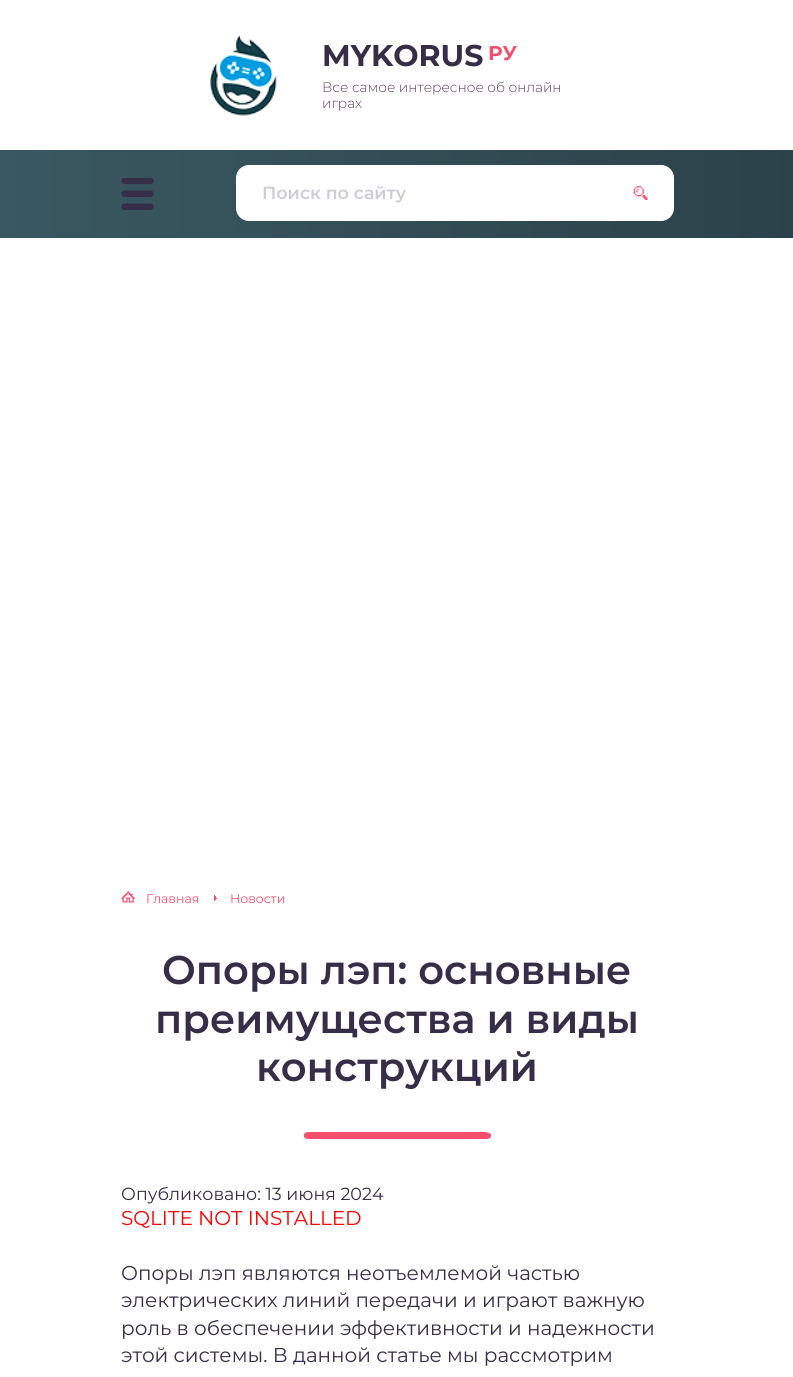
import math
import cairo

surface = cairo.ImageSurface(cairo.FORMAT_RGB24, 793, 1377)
ctx = cairo.Context(surface)
options = cairo.FontOptions()
options.set_hint_metrics(cairo.HINT_METRICS_OFF)
options.set_hint_style(cairo.HINT_STYLE_NONE)
ctx.set_font_options(options)
ctx.set_miter_limit(4)


def set_color(code):
    ctx.set_source_rgb(*(v / 255 for v in bytes.fromhex(code[-6:])))


def draw_text(x, y, s, family, size, color, bold=False, italic=False):
    ctx.select_font_face(family, cairo.FONT_SLANT_ITALIC if italic else cairo.FONT_SLANT_NORMAL, cairo.FONT_WEIGHT_BOLD if bold else cairo.FONT_WEIGHT_NORMAL)
    ctx.set_font_size(size)
    set_color(color)
    ctx.move_to(x, y)
    ctx.show_text(s)


def fill_rect(x, y, w, h, color):
    set_color(color)
    ctx.rectangle(x, y, w, h)
    ctx.fill()


def rounded_rect(x, y, w, h, r):
    ctx.new_sub_path()
    for i, (u, v) in enumerate([(x + w - r, y + h - r), (x + r, y + h - r), (x + r, y + r), (x + w - r, y + r)]):
        ctx.arc(u, v, r, i * math.pi / 2, (i + 1) * math.pi / 2)
    ctx.close_path()


def draw_image(path, x, y, w, h):
    ctx.save()
    ctx.set_source_surface(cairo.ImageSurface.create_from_png(path), x, y)
    ctx.rectangle(x, y, w, h)
    ctx.fill()
    ctx.restore()


set_color("#ffffff")
ctx.paint()
draw_image("assets/img1.png", 210, 35, 67, 81)
draw_text(322, 66, "MYKORUS", "Montserrat", 30, "#362e48", bold=True)
draw_text(488, 60, "РУ", "Montserrat", 20, "#f74e6e", bold=True)
draw_text(322, 92, "Все самое интересное об онлайн", "Montserrat Light", 13.75, "#5e3f66")
draw_text(322, 108, "играх", "Montserrat Light", 13.75, "#5e3f66")
gradient = cairo.LinearGradient(0, 194, 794, 194)
gradient.add_color_stop_rgba(0, 0.227, 0.345, 0.38, 1)
gradient.add_color_stop_rgba(1, 0.169, 0.259, 0.29, 1)
ctx.set_source(gradient)
ctx.rectangle(0, 150, 793, 88)
ctx.fill()
set_color("#ffffff")
rounded_rect(236.5, 165.5, 437, 55, 12.5)
ctx.fill_preserve()
ctx.set_line_width(1)
ctx.stroke()
draw_text(262, 199, "Поиск по сайту", "Montserrat SemiBold", 17.5, "#cfcdd3")
draw_image("assets/img2.png", 633, 186, 15, 14)
draw_image("assets/img3.png", 121, 178, 33, 32)
draw_image("assets/img4.png", 121, 891, 14, 12)
draw_text(146, 903, "Главная", "Montserrat", 12.5, "#f74e6e")
fill_rect(214, 895, 1, 6, "#f74e6e")
fill_rect(215, 896, 1, 4, "#f74e6e")
fill_rect(216, 898, 1, 1, "#f74e6e")
draw_text(230, 903, "Новости", "Montserrat", 12.5, "#f74e6e")
draw_text(162, 984, "Опоры лэп: основные", "Montserrat SemiBold", 40, "#362e48")
draw_text(155, 1033, "преимущества и виды", "Montserrat SemiBold", 40, "#362e48")
draw_text(256, 1081, "конструкций", "Montserrat SemiBold", 40, "#362e48")
set_color("#f74e6e")
ctx.new_path()
ctx.move_to(309, 1132)
ctx.line_to(486, 1132)
ctx.curve_to(488, 1133, 491, 1133, 491, 1135)
ctx.curve_to(491, 1138, 489, 1139, 486, 1139)
ctx.line_to(309, 1139)
ctx.curve_to(302, 1139, 302, 1132, 309, 1132)
ctx.close_path()
ctx.fill()
draw_text(121, 1200, "Опубликовано: 13 июня 2024", "Montserrat", 17.5, "#362e48")
draw_text(121, 1225, "SQLITE NOT INSTALLED", "Montserrat", 20, "#ff0000")
draw_text(121, 1280, "Опоры лэп являются неотъемлемой частью", "Montserrat", 20, "#362e48")
draw_text(121, 1307, "электрических линий передачи и играют важную", "Montserrat", 20, "#362e48")
draw_text(121, 1335, "роль в обеспечении эффективности и надежности", "Montserrat", 20, "#362e48")
draw_text(121, 1362, "этой системы. В данной статье мы рассмотрим", "Montserrat", 20, "#362e48")
surface.write_to_png("output.png")
